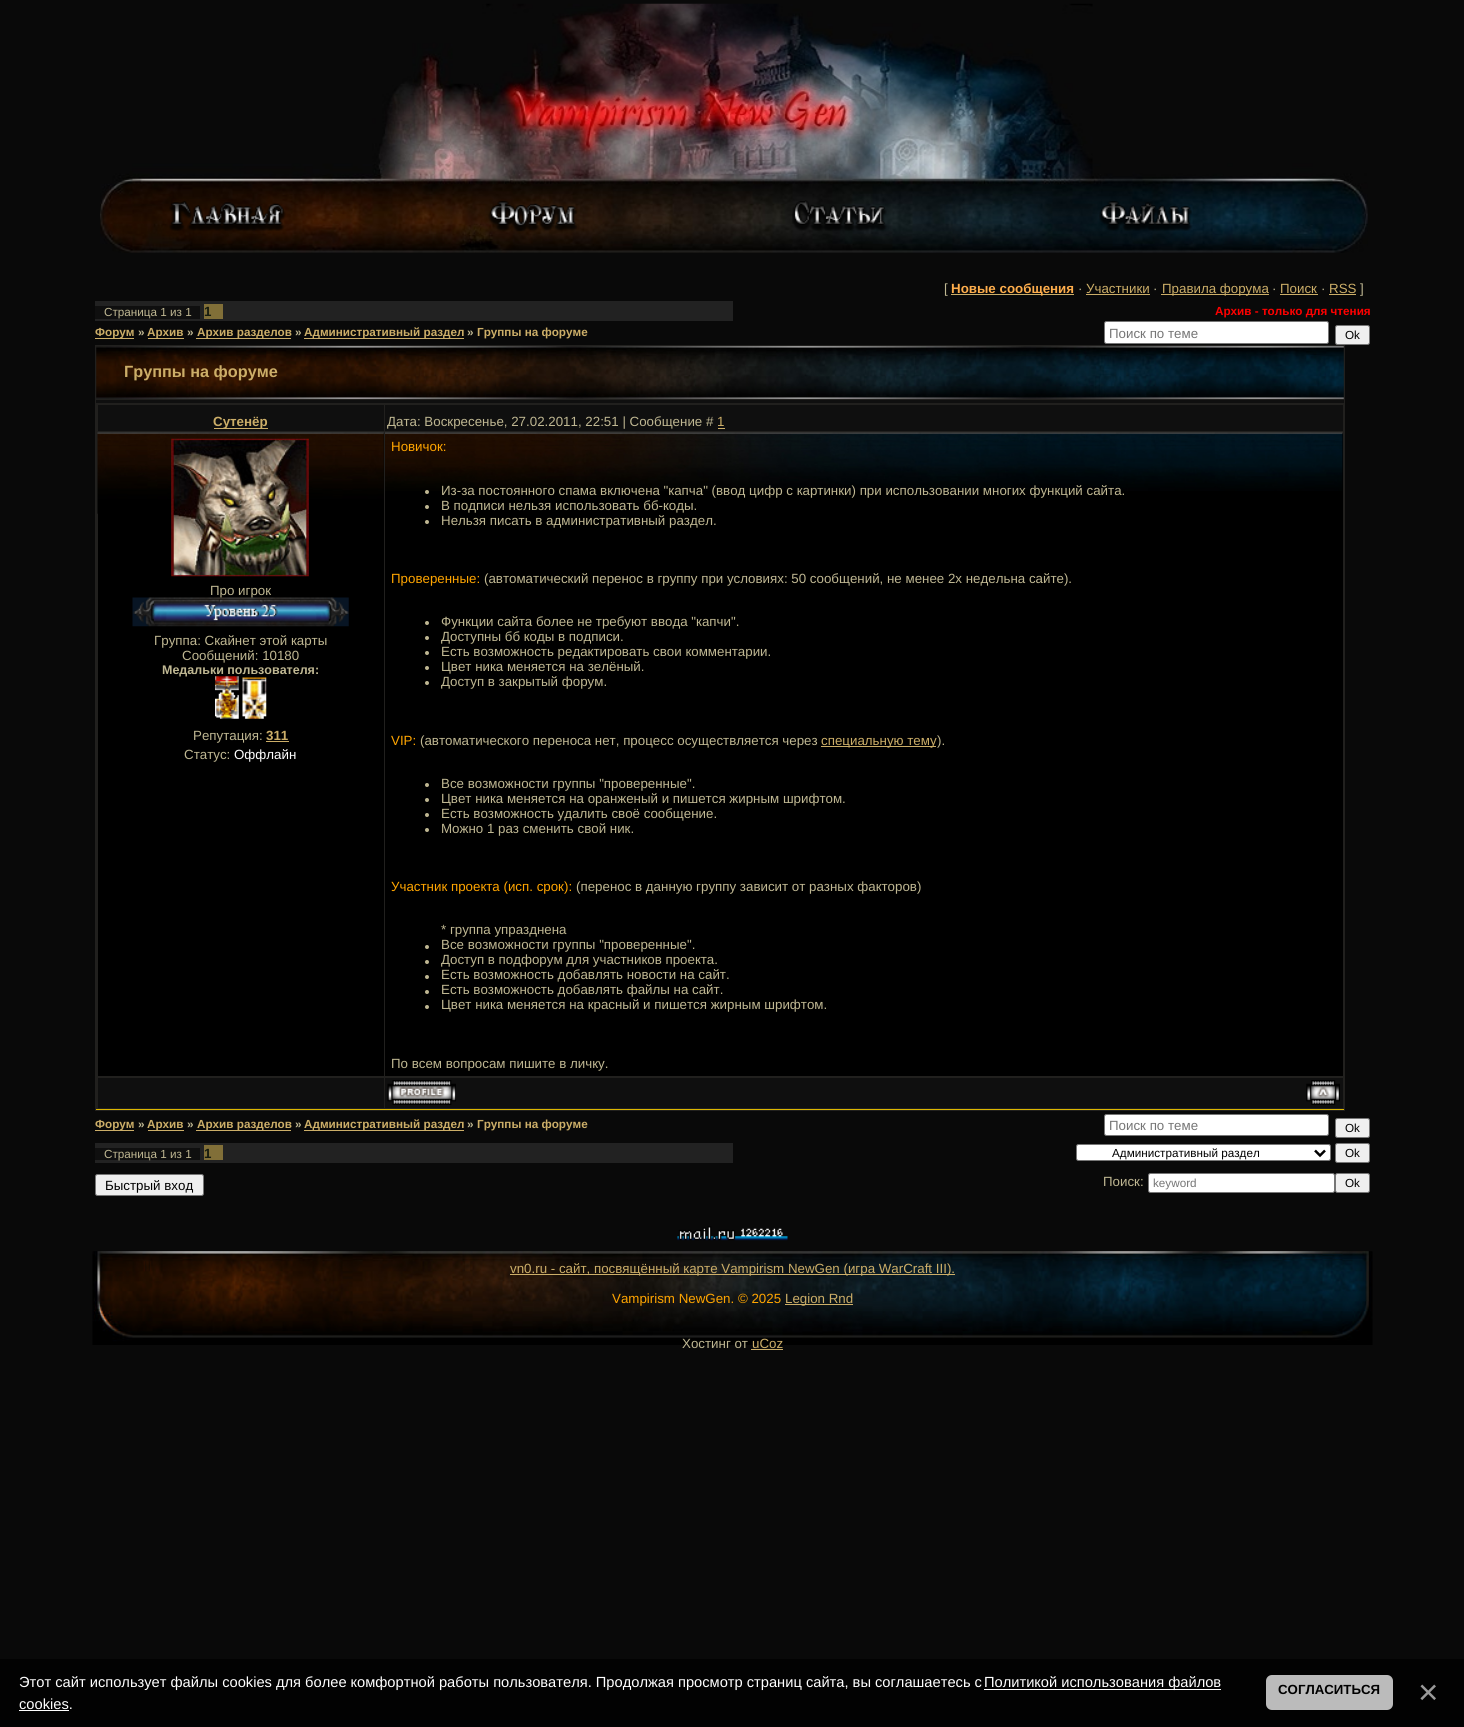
import math
import cairo

surface = cairo.ImageSurface(cairo.FORMAT_RGB24, 1464, 1727)
ctx = cairo.Context(surface)
options = cairo.FontOptions()
options.set_hint_metrics(cairo.HINT_METRICS_OFF)
options.set_hint_style(cairo.HINT_STYLE_NONE)
ctx.set_font_options(options)
ctx.set_miter_limit(4)


def set_color(code):
    ctx.set_source_rgb(*(v / 255 for v in bytes.fromhex(code[-6:])))


def draw_text(x, y, s, family, size, color, bold=False, italic=False):
    ctx.select_font_face(family, cairo.FONT_SLANT_ITALIC if italic else cairo.FONT_SLANT_NORMAL, cairo.FONT_WEIGHT_BOLD if bold else cairo.FONT_WEIGHT_NORMAL)
    ctx.set_font_size(size)
    set_color(color)
    ctx.move_to(x, y)
    ctx.show_text(s)


def fill_rect(x, y, w, h, color):
    set_color(color)
    ctx.rectangle(x, y, w, h)
    ctx.fill()


def rounded_rect(x, y, w, h, r):
    ctx.new_sub_path()
    for i, (u, v) in enumerate([(x + w - r, y + h - r), (x + r, y + h - r), (x + r, y + r), (x + w - r, y + r)]):
        ctx.arc(u, v, r, i * math.pi / 2, (i + 1) * math.pi / 2)
    ctx.close_path()


def draw_image(path, x, y, w, h):
    ctx.save()
    ctx.set_source_surface(cairo.ImageSurface.create_from_png(path), x, y)
    ctx.rectangle(x, y, w, h)
    ctx.fill()
    ctx.restore()


set_color("#090909")
ctx.paint()
draw_image("assets/img1.png", 100, 3, 1268, 250)
draw_image("assets/img2.png", 169, 201, 117, 30)
draw_image("assets/img3.png", 488, 201, 89, 31)
draw_image("assets/img4.png", 792, 200, 95, 31)
draw_image("assets/img5.png", 1099, 201, 93, 30)
draw_text(944, 293, "[", "Liberation Sans", 13.33, "#bfb792")
fill_rect(951, 294, 123, 1, "#ccae68")
draw_text(951, 293, "Новые сообщения", "Liberation Sans", 13.33, "#ffae4c", bold=True)
draw_text(1078, 293, "·", "Liberation Sans", 13.33, "#bfb792")
draw_text(1086, 293, "Участники", "Liberation Sans", 13.33, "#ccae68")
fill_rect(1086, 294, 64, 1, "#ccae68")
draw_text(1153, 293, "·", "Liberation Sans", 13.33, "#bfb792")
fill_rect(1161, 294, 108, 1, "#ccae68")
draw_text(1162, 293, "Правила форума", "Liberation Sans", 13.33, "#ccae68")
draw_text(1272, 293, "·", "Liberation Sans", 13.33, "#bfb792")
draw_text(1280, 293, "Поиск", "Liberation Sans", 13.33, "#ccae68")
fill_rect(1280, 294, 38, 1, "#ccae68")
draw_text(1321, 293, "·", "Liberation Sans", 13.33, "#bfb792")
draw_text(1329, 293, "RSS", "Liberation Sans", 13.33, "#ccae68")
fill_rect(1329, 294, 27, 1, "#ccae68")
draw_text(1360, 293, "]", "Liberation Sans", 13.33, "#bfb792")
fill_rect(95, 301, 638, 20, "#222222")
fill_rect(95, 306, 105, 13, "#0f0f0f")
draw_text(104, 316, "Страница 1 из 1", "Liberation Sans", 11.7, "#bfb792")
fill_rect(204, 304, 19, 15, "#816f38")
draw_text(204, 316, "1", "Liberation Sans", 13.33, "#151b0f", bold=True)
draw_text(1215, 315, "Архив - только для чтения", "Liberation Sans", 11.7, "#ff0000", bold=True)
fill_rect(95, 338, 39, 1, "#ccae68")
draw_text(95, 336, "Форум", "Liberation Sans", 11.7, "#ccae68", bold=True)
draw_text(138, 336, "»", "Liberation Sans", 11.7, "#bfb792", bold=True)
fill_rect(148, 338, 36, 1, "#ccae68")
draw_text(147, 336, "Архив", "Liberation Sans", 11.7, "#ccae68", bold=True)
draw_text(187, 336, "»", "Liberation Sans", 11.7, "#bfb792", bold=True)
fill_rect(196, 338, 95, 1, "#ccae68")
draw_text(197, 336, "Архив разделов", "Liberation Sans", 11.7, "#ccae68", bold=True)
draw_text(295, 336, "»", "Liberation Sans", 11.7, "#bfb792", bold=True)
fill_rect(304, 338, 160, 1, "#ccae68")
draw_text(304, 336, "Административный раздел", "Liberation Sans", 11.7, "#ccae68", bold=True)
draw_text(467, 336, "»", "Liberation Sans", 11.7, "#bfb792", bold=True)
draw_text(477, 336, "Группы на форуме", "Liberation Sans", 11.7, "#ccae68", bold=True)
set_color("#ffffff")
rounded_rect(1104.5, 321.5, 224, 22, 2)
ctx.fill_preserve()
set_color("#767676")
ctx.set_line_width(1)
ctx.stroke()
draw_text(1109, 338, "Поиск по теме", "Liberation Sans", 13.33, "#757575")
set_color("#efefef")
rounded_rect(1335.5, 325.5, 34, 19, 2)
ctx.fill_preserve()
set_color("#767676")
ctx.stroke()
draw_text(1345, 339, "Ok", "Liberation Sans", 11.7, "#000000")
fill_rect(95, 345, 1250, 766, "#21201e")
draw_image("assets/img6.png", 96, 346, 1248, 53)
draw_text(124, 377, "Группы на форуме", "Liberation Sans", 16.25, "#ccae68", bold=True)
fill_rect(96, 400, 1248, 3, "#0f0f0f")
fill_rect(96, 1109, 1248, 1, "#ddb700")
fill_rect(98, 405, 286, 26, "#0f0f0f")
fill_rect(214, 428, 54, 1, "#ccae68")
draw_text(213, 426, "Сутенёр", "Liberation Sans", 13.33, "#ccae68", bold=True)
fill_rect(385, 405, 958, 26, "#0f0f0f")
draw_text(387, 426, "Дата: Воскресенье, 27.02.2011, 22:51 | Сообщение #", "Liberation Sans", 13.33, "#bfb792")
draw_text(717, 426, "1", "Liberation Sans", 13.33, "#ccae68")
fill_rect(718, 428, 7, 1, "#ccae68")
fill_rect(98, 433, 286, 643, "#000000")
draw_image("assets/img7.png", 97, 432, 287, 82)
draw_image("assets/img8.png", 171, 438, 138, 139)
draw_text(210, 595, "Про игрок", "Liberation Sans", 13.33, "#bfb792")
draw_image("assets/img9.png", 132, 597, 217, 30)
draw_text(154, 645, "Группа: Скайнет этой карты", "Liberation Sans", 13.33, "#bfb792")
draw_text(182, 660, "Сообщений: 10180", "Liberation Sans", 13.33, "#bfb792")
draw_text(162, 674, "Медальки пользователя:", "Liberation Sans", 12.5, "#bfb792", bold=True)
draw_image("assets/img10.png", 215, 676, 24, 43)
draw_image("assets/img11.png", 242, 677, 25, 42)
draw_text(193, 740, "Репутация:", "Liberation Sans", 13.33, "#bfb792")
draw_text(266, 740, "311", "Liberation Sans", 13.33, "#ccae68", bold=True)
fill_rect(266, 741, 23, 1, "#ccae68")
draw_text(184, 759, "Статус:", "Liberation Sans", 13.33, "#bfb792")
draw_text(234, 759, "Оффлайн", "Liberation Sans", 13.33, "#ffffff")
fill_rect(385, 433, 958, 643, "#000000")
draw_image("assets/img12.png", 385, 432, 958, 59)
draw_text(391, 451, "Новичок:", "Liberation Sans", 13.33, "#ffa500")
set_color("#bfb792")
ctx.new_path()
ctx.arc(427, 492, 2, 0, 2 * math.pi)
ctx.fill()
draw_text(441, 495, "Из-за постоянного спама включена \"капча\" (ввод цифр с картинки) при использовании многих функций сайта.", "Liberation Sans", 13.33, "#bfb792")
ctx.new_path()
ctx.arc(427, 507, 2, 0, 2 * math.pi)
ctx.fill()
draw_text(441, 510, "В подписи нельзя использовать бб-коды.", "Liberation Sans", 13.33, "#bfb792")
ctx.new_path()
ctx.arc(427, 522, 2, 0, 2 * math.pi)
ctx.fill()
draw_text(441, 525, "Нельзя писать в административный раздел.", "Liberation Sans", 13.33, "#bfb792")
draw_text(391, 583, "Проверенные:", "Liberation Sans", 13.33, "#ffa500")
draw_text(484, 583, "(автоматический перенос в группу при условиях: 50 сообщений, не менее 2х недельна сайте).", "Liberation Sans", 13.33, "#bfb792")
ctx.new_path()
ctx.arc(427, 623, 2, 0, 2 * math.pi)
ctx.fill()
draw_text(441, 626, "Функции сайта более не требуют ввода \"капчи\".", "Liberation Sans", 13.33, "#bfb792")
ctx.new_path()
ctx.arc(427, 638, 2, 0, 2 * math.pi)
ctx.fill()
draw_text(441, 641, "Доступны бб коды в подписи.", "Liberation Sans", 13.33, "#bfb792")
ctx.new_path()
ctx.arc(427, 653, 2, 0, 2 * math.pi)
ctx.fill()
draw_text(441, 656, "Есть возможность редактировать свои комментарии.", "Liberation Sans", 13.33, "#bfb792")
ctx.new_path()
ctx.arc(427, 668, 2, 0, 2 * math.pi)
ctx.fill()
draw_text(441, 671, "Цвет ника меняется на зелёный.", "Liberation Sans", 13.33, "#bfb792")
ctx.new_path()
ctx.arc(427, 683, 2, 0, 2 * math.pi)
ctx.fill()
draw_text(441, 686, "Доступ в закрытый форум.", "Liberation Sans", 13.33, "#bfb792")
draw_text(391, 745, "VIP:", "Liberation Sans", 13.33, "#ffa500")
draw_text(420, 745, "(автоматического переноса нет, процесс осуществляется через", "Liberation Sans", 13.33, "#bfb792")
fill_rect(821, 746, 115, 1, "#ccae68")
draw_text(821, 745, "специальную тему", "Liberation Sans", 13.33, "#ccae68")
draw_text(937, 745, ").", "Liberation Sans", 13.33, "#bfb792")
ctx.new_path()
ctx.arc(427, 785, 2, 0, 2 * math.pi)
ctx.fill()
draw_text(441, 788, "Все возможности группы \"проверенные\".", "Liberation Sans", 13.33, "#bfb792")
ctx.new_path()
ctx.arc(427, 800, 2, 0, 2 * math.pi)
ctx.fill()
draw_text(441, 803, "Цвет ника меняется на оранженый и пишется жирным шрифтом.", "Liberation Sans", 13.33, "#bfb792")
ctx.new_path()
ctx.arc(427, 815, 2, 0, 2 * math.pi)
ctx.fill()
draw_text(441, 818, "Есть возможность удалить своё сообщение.", "Liberation Sans", 13.33, "#bfb792")
ctx.new_path()
ctx.arc(427, 830, 2, 0, 2 * math.pi)
ctx.fill()
draw_text(441, 833, "Можно 1 раз сменить свой ник.", "Liberation Sans", 13.33, "#bfb792")
draw_text(391, 891, "Участник проекта (исп. срок):", "Liberation Sans", 13.33, "#ffa500")
draw_text(576, 891, "(перенос в данную группу зависит от разных факторов)", "Liberation Sans", 13.33, "#bfb792")
draw_text(441, 934, "* группа упразднена", "Liberation Sans", 13.33, "#bfb792")
ctx.new_path()
ctx.arc(427, 947, 2, 0, 2 * math.pi)
ctx.fill()
draw_text(441, 949, "Все возможности группы \"проверенные\".", "Liberation Sans", 13.33, "#bfb792")
ctx.new_path()
ctx.arc(427, 962, 2, 0, 2 * math.pi)
ctx.fill()
draw_text(441, 964, "Доступ в подфорум для участников проекта.", "Liberation Sans", 13.33, "#bfb792")
ctx.new_path()
ctx.arc(427, 977, 2, 0, 2 * math.pi)
ctx.fill()
draw_text(441, 979, "Есть возможность добавлять новости на сайт.", "Liberation Sans", 13.33, "#bfb792")
ctx.new_path()
ctx.arc(427, 992, 2, 0, 2 * math.pi)
ctx.fill()
draw_text(441, 994, "Есть возможность добавлять файлы на сайт.", "Liberation Sans", 13.33, "#bfb792")
ctx.new_path()
ctx.arc(427, 1007, 2, 0, 2 * math.pi)
ctx.fill()
draw_text(441, 1009, "Цвет ника меняется на красный и пишется жирным шрифтом.", "Liberation Sans", 13.33, "#bfb792")
draw_text(391, 1068, "По всем вопросам пишите в личку.", "Liberation Sans", 13.33, "#bfb792")
fill_rect(98, 1078, 286, 30, "#0f0f0f")
fill_rect(385, 1078, 958, 30, "#0f0f0f")
draw_image("assets/img13.png", 387, 1080, 69, 25)
draw_image("assets/img14.png", 1306, 1080, 34, 25)
fill_rect(95, 1130, 39, 1, "#ccae68")
draw_text(95, 1128, "Форум", "Liberation Sans", 11.7, "#ccae68", bold=True)
draw_text(138, 1128, "»", "Liberation Sans", 11.7, "#bfb792", bold=True)
fill_rect(148, 1130, 36, 1, "#ccae68")
draw_text(147, 1128, "Архив", "Liberation Sans", 11.7, "#ccae68", bold=True)
draw_text(187, 1128, "»", "Liberation Sans", 11.7, "#bfb792", bold=True)
fill_rect(196, 1130, 95, 1, "#ccae68")
draw_text(197, 1128, "Архив разделов", "Liberation Sans", 11.7, "#ccae68", bold=True)
draw_text(295, 1128, "»", "Liberation Sans", 11.7, "#bfb792", bold=True)
fill_rect(304, 1130, 160, 1, "#ccae68")
draw_text(304, 1128, "Административный раздел", "Liberation Sans", 11.7, "#ccae68", bold=True)
draw_text(467, 1128, "»", "Liberation Sans", 11.7, "#bfb792", bold=True)
draw_text(477, 1128, "Группы на форуме", "Liberation Sans", 11.7, "#ccae68", bold=True)
set_color("#ffffff")
rounded_rect(1104.5, 1114.5, 224, 21, 2)
ctx.fill_preserve()
set_color("#767676")
ctx.stroke()
draw_text(1109, 1130, "Поиск по теме", "Liberation Sans", 13.33, "#757575")
set_color("#efefef")
rounded_rect(1335.5, 1118.5, 34, 19, 2)
ctx.fill_preserve()
set_color("#767676")
ctx.stroke()
draw_text(1345, 1132, "Ok", "Liberation Sans", 11.7, "#000000")
fill_rect(95, 1143, 638, 20, "#222222")
fill_rect(95, 1148, 105, 12, "#0f0f0f")
draw_text(104, 1158, "Страница 1 из 1", "Liberation Sans", 11.7, "#bfb792")
fill_rect(204, 1145, 19, 15, "#816f38")
draw_text(204, 1158, "1", "Liberation Sans", 13.33, "#151b0f", bold=True)
set_color("#ffffff")
rounded_rect(1076.5, 1144.5, 254, 16, 2)
ctx.fill_preserve()
set_color("#767676")
ctx.stroke()
ctx.new_path()
ctx.move_to(1315, 1150.5)
ctx.line_to(1320, 1155.5)
ctx.line_to(1325, 1150.5)
set_color("#000000")
ctx.set_line_width(2.5)
ctx.stroke()
draw_text(1112, 1157, "Административный раздел", "Liberation Sans", 11.7, "#000000")
set_color("#efefef")
rounded_rect(1335.5, 1143.5, 34, 19, 2)
ctx.fill_preserve()
set_color("#767676")
ctx.set_line_width(1)
ctx.stroke()
draw_text(1345, 1157, "Ok", "Liberation Sans", 11.7, "#000000")
set_color("#efefef")
rounded_rect(95.5, 1174.5, 108, 21, 2)
ctx.fill_preserve()
set_color("#767676")
ctx.stroke()
draw_text(105, 1190, "Быстрый вход", "Liberation Sans", 13.33, "#000000")
draw_text(1103, 1186, "Поиск:", "Liberation Sans", 13.33, "#bfb792")
set_color("#ffffff")
rounded_rect(1148.5, 1173.5, 186, 19, 2)
ctx.fill_preserve()
set_color("#767676")
ctx.stroke()
draw_text(1153, 1187, "keyword", "Liberation Sans", 11.7, "#757575")
set_color("#efefef")
rounded_rect(1335.5, 1173.5, 34, 19, 2)
ctx.fill_preserve()
set_color("#767676")
ctx.stroke()
draw_text(1345, 1187, "Ok", "Liberation Sans", 11.7, "#000000")
draw_image("assets/img15.png", 677, 1226, 111, 15)
draw_image("assets/img16.png", 92, 1251, 1281, 94)
fill_rect(510, 1274, 445, 1, "#ccae68")
draw_text(510, 1273, "vn0.ru - сайт, посвящённый карте Vampirism NewGen (игра WarCraft III).", "Liberation Sans", 13.33, "#ccae68")
draw_text(612, 1303, "Vampirism NewGen. © 2025", "Liberation Sans", 13.33, "#ffa500")
fill_rect(785, 1304, 68, 1, "#ccae68")
draw_text(785, 1303, "Legion Rnd", "Liberation Sans", 13.33, "#ccae68")
draw_text(682, 1348, "Хостинг от", "Liberation Sans", 13.33, "#bfb792")
draw_text(752, 1348, "uCoz", "Liberation Sans", 13.33, "#ccae68")
fill_rect(751, 1349, 32, 1, "#ccae68")
fill_rect(0, 1659, 1464, 68, "#020202")
draw_text(19, 1687, "Этот сайт использует файлы cookies для более комфортной работы пользователя. Продолжая просмотр страниц сайта, вы соглашаетесь с", "Liberation Sans", 14.67, "#ffffff")
fill_rect(984, 1689, 237, 1, "#ffffff")
draw_text(984, 1687, "Политикой использования файлов", "Liberation Sans", 14.67, "#ffffff")
draw_text(19, 1709, "cookies.", "Liberation Sans", 14.67, "#ffffff")
fill_rect(19, 1710, 50, 1, "#ffffff")
set_color("#bbbbbb")
rounded_rect(1266, 1675, 127, 35, 6)
ctx.fill()
draw_text(1278, 1694, "СОГЛАСИТЬСЯ", "Liberation Sans", 13.25, "#000000", bold=True)
draw_text(1418, 1704, "×", "Liberation Sans", 35, "#999999")
surface.write_to_png("output.png")
